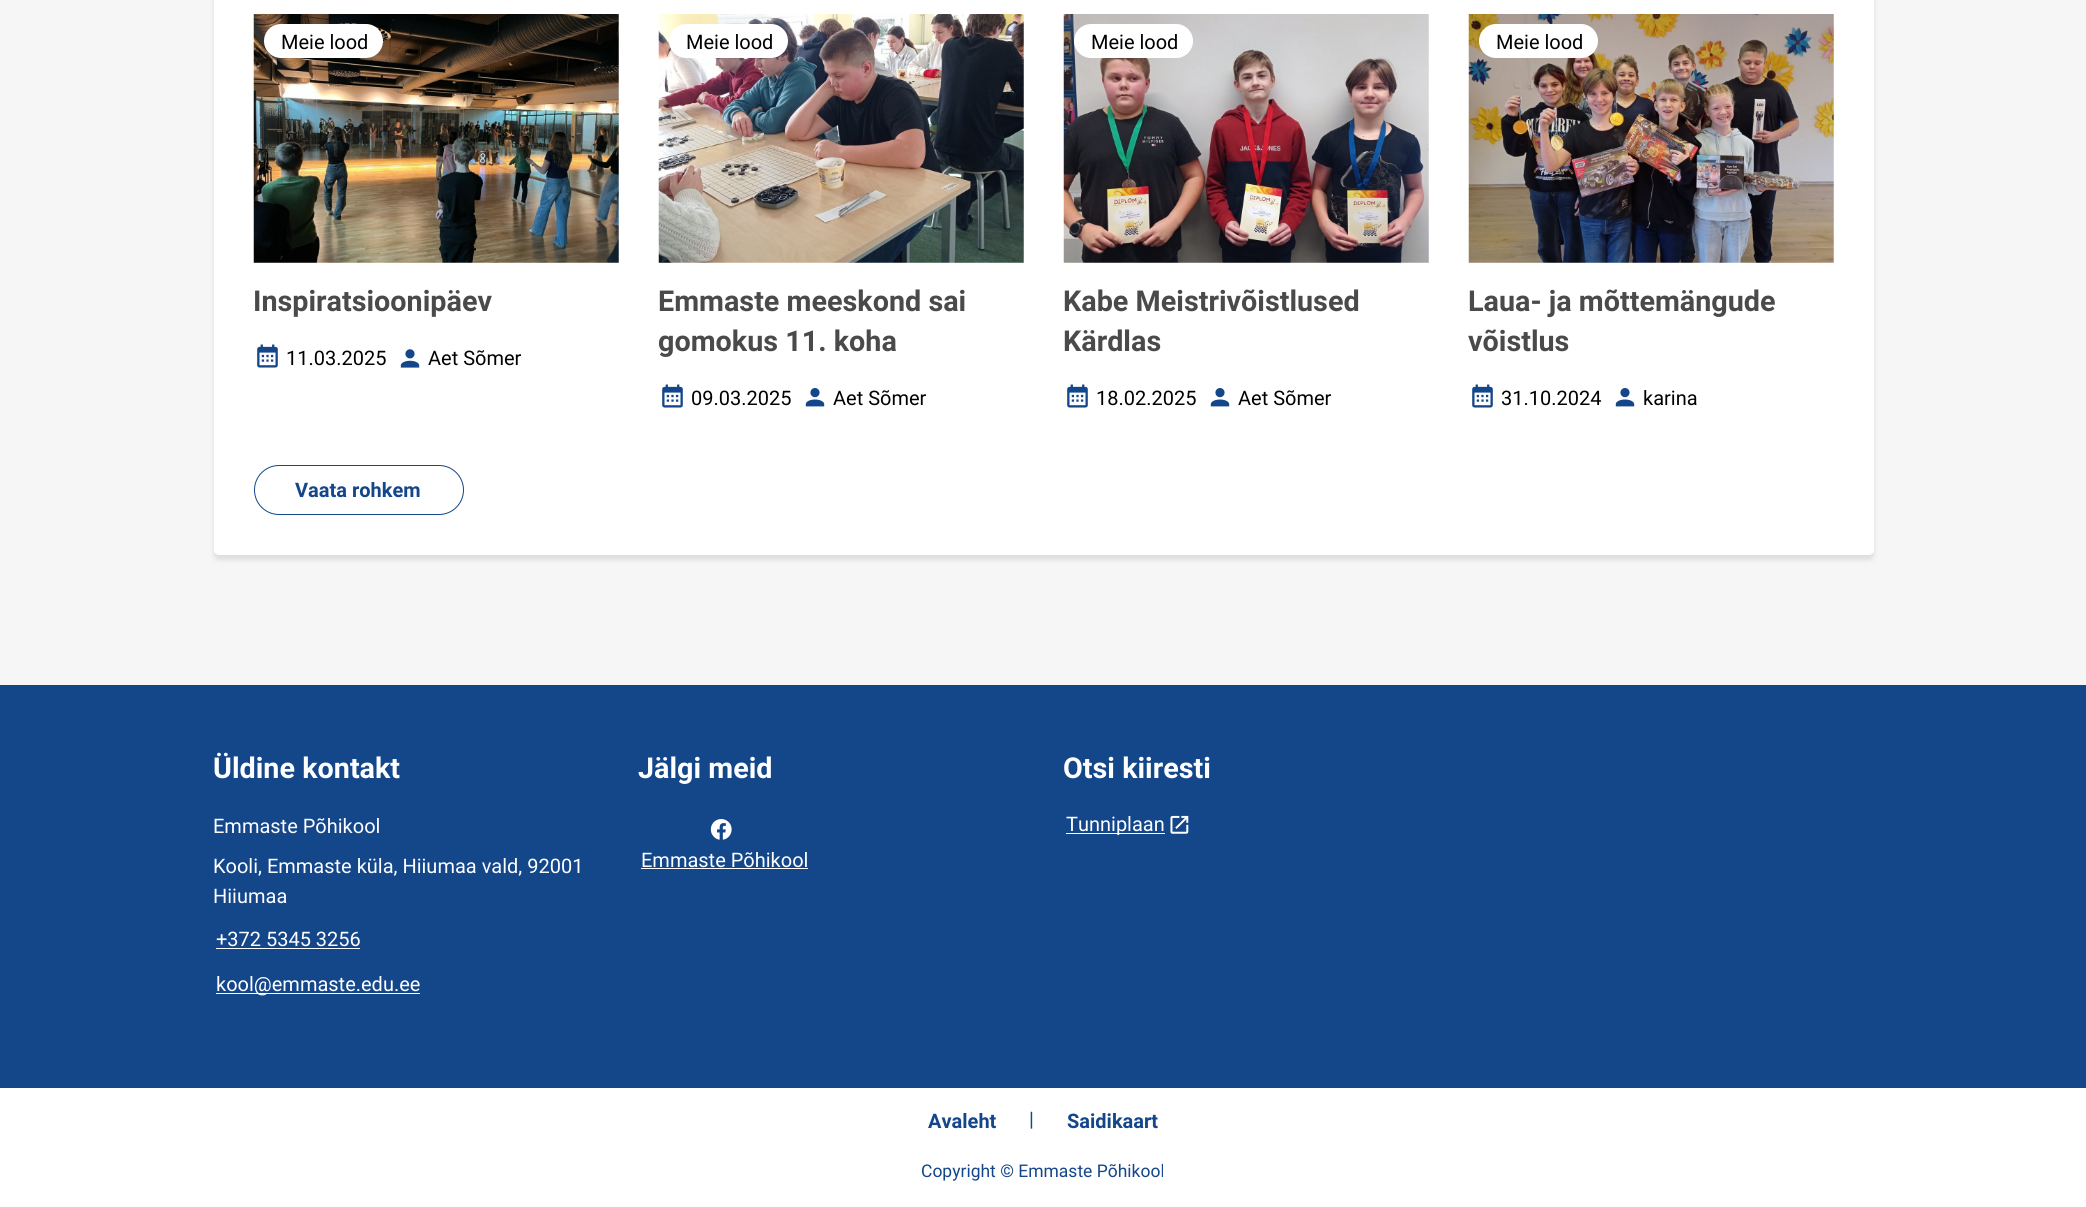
import math
import cairo

surface = cairo.ImageSurface(cairo.FORMAT_RGB24, 2086, 1207)
ctx = cairo.Context(surface)
options = cairo.FontOptions()
options.set_hint_metrics(cairo.HINT_METRICS_OFF)
options.set_hint_style(cairo.HINT_STYLE_NONE)
ctx.set_font_options(options)
ctx.set_miter_limit(4)


def set_color(code):
    ctx.set_source_rgb(*(v / 255 for v in bytes.fromhex(code[-6:])))


def draw_text(x, y, s, family, size, color, bold=False, italic=False):
    ctx.select_font_face(family, cairo.FONT_SLANT_ITALIC if italic else cairo.FONT_SLANT_NORMAL, cairo.FONT_WEIGHT_BOLD if bold else cairo.FONT_WEIGHT_NORMAL)
    ctx.set_font_size(size)
    set_color(color)
    ctx.move_to(x, y)
    ctx.show_text(s)


def fill_rect(x, y, w, h, color):
    set_color(color)
    ctx.rectangle(x, y, w, h)
    ctx.fill()


def rounded_rect(x, y, w, h, r):
    ctx.new_sub_path()
    for i, (u, v) in enumerate([(x + w - r, y + h - r), (x + r, y + h - r), (x + r, y + r), (x + w - r, y + r)]):
        ctx.arc(u, v, r, i * math.pi / 2, (i + 1) * math.pi / 2)
    ctx.close_path()


def draw_shadow(x, y, w, h, r, blur, alpha):
    ctx.push_group_with_content(cairo.CONTENT_ALPHA)
    ctx.set_operator(cairo.OPERATOR_SOURCE)
    for i in range(15, -16, -2):
        e = blur * i / 6
        if min(w, h) + 2 * e > 0:
            ctx.set_source_rgba(0, 0, 0, alpha * math.erfc((i - 1) / 8.5) / 2)
            rounded_rect(x - e, y - e, w + 2 * e, h + 2 * e, max(0, min(r + e + blur * .6, min(w, h) / 2 + e)))
            ctx.fill()
    ctx.mask(ctx.pop_group())


def draw_image(path, x, y, w, h):
    ctx.save()
    ctx.set_source_surface(cairo.ImageSurface.create_from_png(path), x, y)
    ctx.rectangle(x, y, w, h)
    ctx.fill()
    ctx.restore()


set_color("#ffffff")
ctx.paint()
fill_rect(0, 0, 2086, 685, "#f6f6f6")
set_color("#000000")
draw_shadow(214, -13, 1660, 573, 5, 2.5, 0.1)
set_color("#ffffff")
rounded_rect(214, -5, 1660, 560, 5)
ctx.fill()
draw_image("assets/img1.png", 253, 14, 366, 249)
rounded_rect(264, 24, 119, 34, 17)
ctx.fill()
draw_text(281, 49, "Meie lood", "Roboto", 20, "#000000")
draw_text(253, 311, "Inspiratsioonipäev", "Roboto", 28.75, "#4a4a4a", bold=True)
draw_image("assets/img2.png", 257, 344, 21, 24)
draw_text(286, 365, "11.03.2025", "Roboto", 20, "#000000")
draw_image("assets/img3.png", 400, 349, 20, 19)
draw_text(428, 365, "Aet Sõmer", "Roboto", 20, "#000000")
draw_image("assets/img4.png", 658, 14, 366, 249)
set_color("#ffffff")
rounded_rect(669, 24, 119, 34, 17)
ctx.fill()
draw_text(686, 49, "Meie lood", "Roboto", 20, "#000000")
draw_text(658, 311, "Emmaste meeskond sai", "Roboto", 28.75, "#4a4a4a", bold=True)
draw_text(658, 351, "gomokus 11. koha", "Roboto", 28.75, "#4a4a4a", bold=True)
draw_image("assets/img2.png", 662, 384, 21, 24)
draw_text(691, 405, "09.03.2025", "Roboto", 20, "#000000")
draw_image("assets/img5.png", 805, 388, 20, 19)
draw_text(833, 405, "Aet Sõmer", "Roboto", 20, "#000000")
draw_image("assets/img6.png", 1063, 14, 366, 249)
set_color("#ffffff")
rounded_rect(1074, 24, 119, 34, 17)
ctx.fill()
draw_text(1091, 49, "Meie lood", "Roboto", 20, "#000000")
draw_text(1063, 311, "Kabe Meistrivõistlused", "Roboto", 28.75, "#4a4a4a", bold=True)
draw_text(1063, 351, "Kärdlas", "Roboto", 28.75, "#4a4a4a", bold=True)
draw_image("assets/img2.png", 1067, 384, 21, 24)
draw_text(1096, 405, "18.02.2025", "Roboto", 20, "#000000")
draw_image("assets/img5.png", 1210, 388, 20, 19)
draw_text(1238, 405, "Aet Sõmer", "Roboto", 20, "#000000")
draw_image("assets/img7.png", 1468, 14, 366, 249)
set_color("#ffffff")
rounded_rect(1479, 24, 119, 34, 17)
ctx.fill()
draw_text(1496, 49, "Meie lood", "Roboto", 20, "#000000")
draw_text(1468, 311, "Laua- ja mõttemängude", "Roboto", 28.75, "#4a4a4a", bold=True)
draw_text(1468, 351, "võistlus", "Roboto", 28.75, "#4a4a4a", bold=True)
draw_image("assets/img2.png", 1472, 384, 21, 24)
draw_text(1501, 405, "31.10.2024", "Roboto", 20, "#000000")
draw_image("assets/img5.png", 1615, 388, 20, 19)
draw_text(1643, 405, "karina", "Roboto", 20, "#000000")
rounded_rect(254.5, 465.5, 209, 49, 24.5)
set_color("#14468a")
ctx.set_line_width(1)
ctx.stroke()
draw_text(295, 497, "Vaata rohkem", "Roboto", 20, "#14468a", bold=True)
fill_rect(0, 685, 2086, 403, "#14468a")
draw_text(213, 778, "Üldine kontakt", "Roboto", 28.75, "#ffffff", bold=True)
draw_text(213, 833, "Emmaste Põhikool", "Roboto", 20, "#ffffff")
draw_text(213, 873, "Kooli, Emmaste küla, Hiiumaa vald, 92001", "Roboto", 20, "#ffffff")
draw_text(213, 903, "Hiiumaa", "Roboto", 20, "#ffffff")
draw_text(216, 946, "+372 5345 3256", "Roboto", 20, "#ffffff")
fill_rect(216, 948, 144, 1, "#ffffff")
fill_rect(216, 993, 204, 1, "#ffffff")
draw_text(216, 991, "kool@emmaste.edu.ee", "Roboto", 20, "#ffffff")
draw_text(638, 778, "Jälgi meid", "Roboto", 28.75, "#ffffff", bold=True)
draw_image("assets/img8.png", 710, 819, 22, 21)
draw_text(641, 867, "Emmaste Põhikool", "Roboto", 20, "#ffffff")
fill_rect(641, 868, 167, 1, "#ffffff")
draw_text(1063, 778, "Otsi kiiresti", "Roboto", 28.75, "#ffffff", bold=True)
fill_rect(1066, 833, 99, 1, "#ffffff")
draw_text(1066, 831, "Tunniplaan", "Roboto", 20, "#ffffff")
draw_image("assets/img9.png", 1170, 815, 19, 19)
draw_text(928, 1128, "Avaleht", "Roboto", 20, "#14468a", bold=True)
draw_text(1029, 1126, "|", "Roboto", 20, "#14468a")
draw_text(1067, 1128, "Saidikaart", "Roboto", 20, "#14468a", bold=True)
draw_text(921, 1177, "Copyright © Emmaste Põhikool", "Roboto", 17.5, "#14468a")
surface.write_to_png("output.png")
